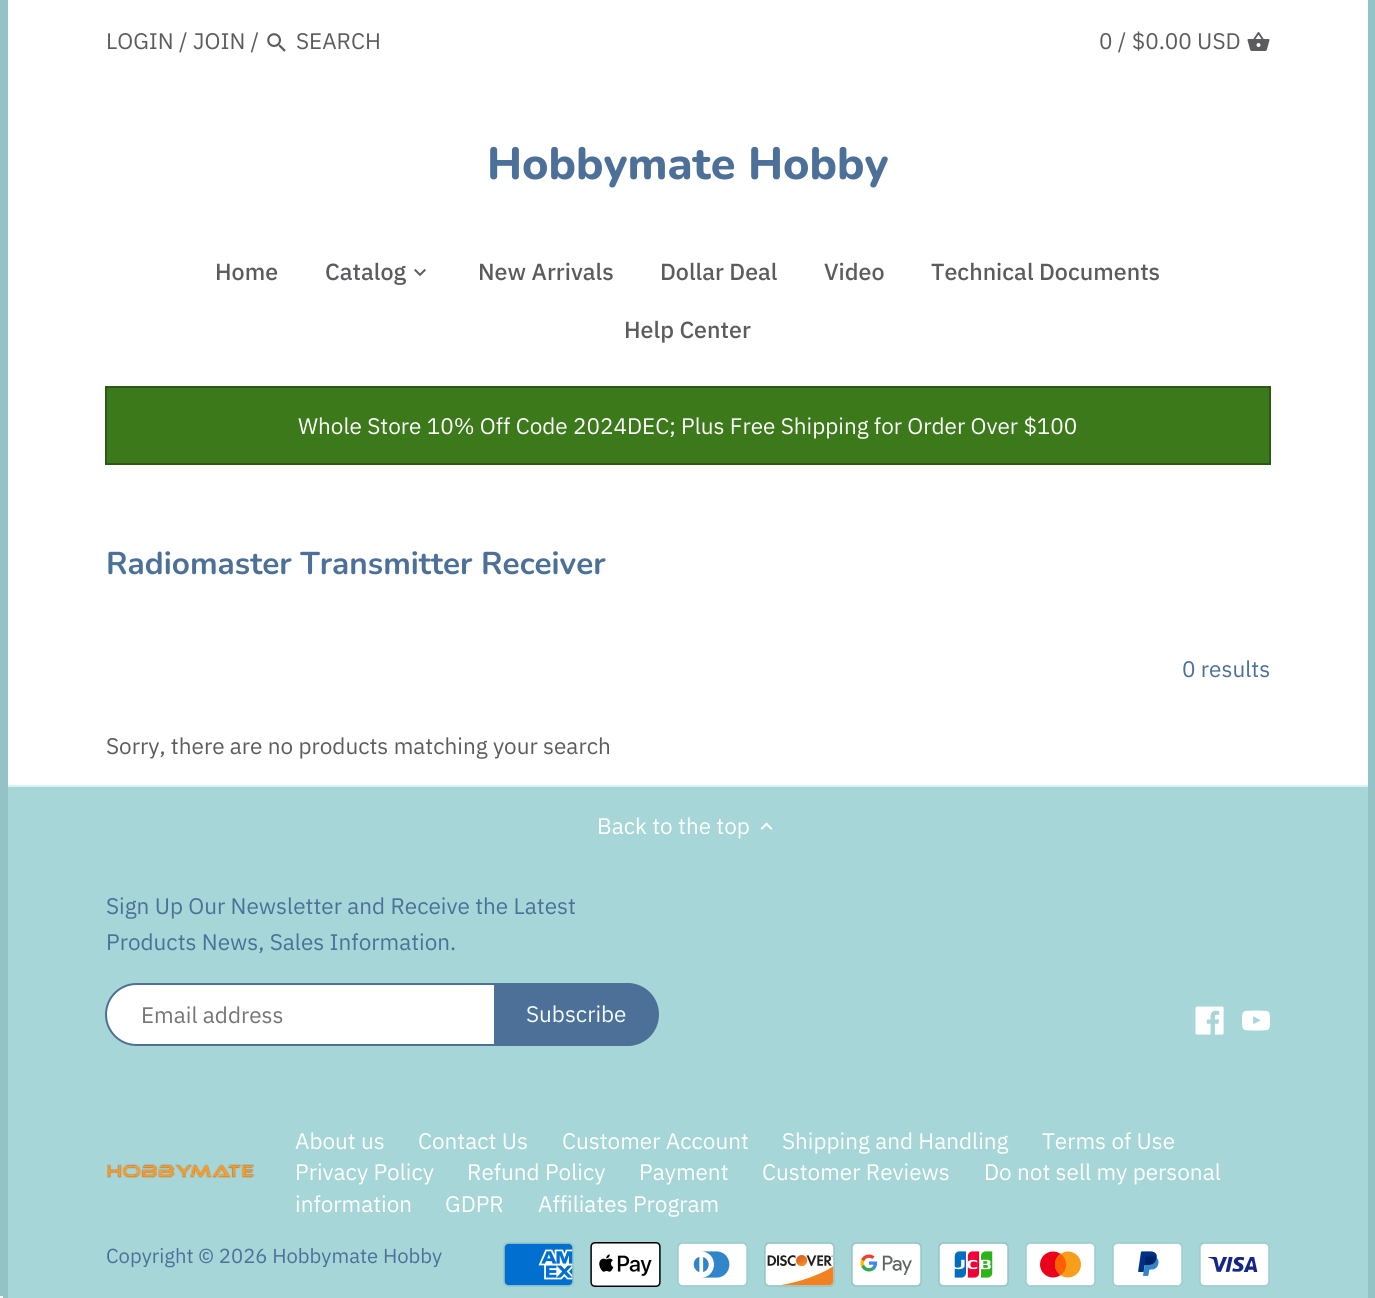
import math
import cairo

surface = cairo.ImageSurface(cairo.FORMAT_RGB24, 1375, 1298)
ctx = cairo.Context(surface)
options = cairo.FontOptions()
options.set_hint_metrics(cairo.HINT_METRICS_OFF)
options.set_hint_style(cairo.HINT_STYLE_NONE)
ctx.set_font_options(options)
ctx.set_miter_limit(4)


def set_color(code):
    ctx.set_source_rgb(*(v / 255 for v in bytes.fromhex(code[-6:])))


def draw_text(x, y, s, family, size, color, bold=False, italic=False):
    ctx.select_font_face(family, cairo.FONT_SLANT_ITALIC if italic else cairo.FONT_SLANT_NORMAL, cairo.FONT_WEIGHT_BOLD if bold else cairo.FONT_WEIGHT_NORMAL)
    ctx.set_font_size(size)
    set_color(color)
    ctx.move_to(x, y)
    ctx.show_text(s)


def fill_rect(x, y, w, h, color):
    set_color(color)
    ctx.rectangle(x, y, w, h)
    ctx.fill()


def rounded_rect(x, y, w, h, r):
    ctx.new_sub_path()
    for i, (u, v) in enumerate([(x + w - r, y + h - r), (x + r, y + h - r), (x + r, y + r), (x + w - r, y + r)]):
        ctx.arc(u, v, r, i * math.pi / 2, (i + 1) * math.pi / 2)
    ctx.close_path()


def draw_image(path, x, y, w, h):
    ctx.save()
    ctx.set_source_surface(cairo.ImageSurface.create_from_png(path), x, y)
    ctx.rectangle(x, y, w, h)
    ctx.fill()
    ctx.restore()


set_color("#a6d6d7")
ctx.paint()
ctx.rectangle(4, -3, 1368, 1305)
set_color("#93c3c4")
ctx.set_line_width(8)
ctx.stroke()
fill_rect(8, 0, 1360, 785, "#ffffff")
draw_text(106, 49, "LOGIN / JOIN /", "IBM Plex Sans", 22.5, "#5c5c5f")
draw_image("assets/img1.png", 267, 33, 19, 19)
draw_text(296, 49, "SEARCH", "IBM Plex Sans", 22.5, "#5c5c5f")
draw_text(1099, 49, "0 / $0.00 USD", "IBM Plex Sans", 22.5, "#5c5c5f")
draw_image("assets/img2.png", 1247, 32, 23, 19)
draw_text(487, 179, "Hobbymate Hobby", "Nunito ExtraBold", 45, "#4d7099")
draw_text(215, 280, "Home", "IBM Plex Sans Medium", 23.25, "#5c5c5f")
draw_text(325, 280, "Catalog", "IBM Plex Sans Medium", 23.25, "#5c5c5f")
draw_image("assets/img3.png", 414, 269, 12, 8)
draw_text(478, 280, "New Arrivals", "IBM Plex Sans Medium", 23.25, "#5c5c5f")
draw_text(660, 280, "Dollar Deal", "IBM Plex Sans Medium", 23.25, "#5c5c5f")
draw_text(824, 280, "Video", "IBM Plex Sans Medium", 23.25, "#5c5c5f")
draw_text(931, 280, "Technical Documents", "IBM Plex Sans Medium", 23.25, "#5c5c5f")
draw_text(624, 338, "Help Center", "IBM Plex Sans Medium", 23.25, "#5c5c5f")
set_color("#3b791b")
ctx.rectangle(106, 387, 1164, 77)
ctx.fill_preserve()
set_color("#2b5814")
ctx.set_line_width(2)
ctx.stroke()
draw_text(298, 434, "Whole Store 10% Off Code 2024DEC; Plus Free Shipping for Order Over $100", "IBM Plex Sans", 22.5, "#ffffff")
draw_text(106, 574, "Radiomaster Transmitter Receiver", "Nunito", 31.5, "#4d7099", bold=True)
draw_text(1182, 677, "0 results", "IBM Plex Sans", 22.5, "#4d7099")
draw_text(106, 754, "Sorry, there are no products matching your search", "IBM Plex Sans", 22.5, "#5c5c5f")
fill_rect(8, 785, 1360, 2, "#d8f4f5")
draw_text(597, 834, "Back to the top", "IBM Plex Sans", 22.5, "#ffffff")
draw_image("assets/img4.png", 760, 822, 13, 8)
draw_text(106, 914, "Sign Up Our Newsletter and Receive the Latest", "IBM Plex Sans", 22.5, "#4d7099")
draw_text(106, 950, "Products News, Sales Information.", "IBM Plex Sans", 22.5, "#4d7099")
set_color("#ffffff")
rounded_rect(106, 984, 550, 61, 30.5)
ctx.fill_preserve()
set_color("#4d7099")
ctx.stroke()
draw_text(141, 1023, "Email address", "IBM Plex Sans", 22.5, "#757575")
set_color("#4d7099")
ctx.new_path()
ctx.move_to(495, 984)
ctx.line_to(627.5, 984)
ctx.curve_to(644.5, 984, 658, 997.5, 658, 1014.5)
ctx.curve_to(658, 1031.5, 644.5, 1045, 627.5, 1045)
ctx.line_to(495, 1045)
ctx.close_path()
ctx.fill_preserve()
ctx.stroke()
draw_text(526, 1022, "Subscribe", "IBM Plex Sans", 22.5, "#f4fbfc")
draw_image("assets/img5.png", 1195, 1006, 29, 29)
draw_image("assets/img6.png", 1242, 1010, 29, 21)
draw_image("assets/img7.png", 107, 1164, 147, 14)
draw_text(295, 1149, "About us", "IBM Plex Sans", 22.5, "#ffffff")
draw_text(418, 1149, "Contact Us", "IBM Plex Sans", 22.5, "#ffffff")
draw_text(562, 1149, "Customer Account", "IBM Plex Sans", 22.5, "#ffffff")
draw_text(782, 1149, "Shipping and Handling", "IBM Plex Sans", 22.5, "#ffffff")
draw_text(1042, 1149, "Terms of Use", "IBM Plex Sans", 22.5, "#ffffff")
draw_text(295, 1180, "Privacy Policy", "IBM Plex Sans", 22.5, "#ffffff")
draw_text(467, 1180, "Refund Policy", "IBM Plex Sans", 22.5, "#ffffff")
draw_text(639, 1180, "Payment", "IBM Plex Sans", 22.5, "#ffffff")
draw_text(762, 1180, "Customer Reviews", "IBM Plex Sans", 22.5, "#ffffff")
draw_text(984, 1180, "Do not sell my personal", "IBM Plex Sans", 22.5, "#ffffff")
draw_text(295, 1212, "information", "IBM Plex Sans", 22.5, "#ffffff")
draw_text(445, 1212, "GDPR", "IBM Plex Sans", 22.5, "#ffffff")
draw_text(538, 1212, "Affiliates Program", "IBM Plex Sans", 22.5, "#ffffff")
draw_text(106, 1263, "Copyright © 2026 Hobbymate Hobby", "IBM Plex Sans", 20.25, "#4d7099")
draw_image("assets/img8.png", 503, 1242, 71, 45)
draw_image("assets/img9.png", 590, 1242, 71, 45)
draw_image("assets/img10.png", 677, 1242, 71, 45)
draw_image("assets/img11.png", 764, 1242, 71, 45)
draw_image("assets/img12.png", 851, 1242, 71, 45)
draw_image("assets/img13.png", 938, 1242, 71, 45)
draw_image("assets/img14.png", 1025, 1242, 71, 45)
draw_image("assets/img15.png", 1112, 1242, 71, 45)
draw_image("assets/img16.png", 1199, 1242, 71, 45)
fill_rect(0, 1296, 3, 2, "#f5f5f5")
surface.write_to_png("output.png")
